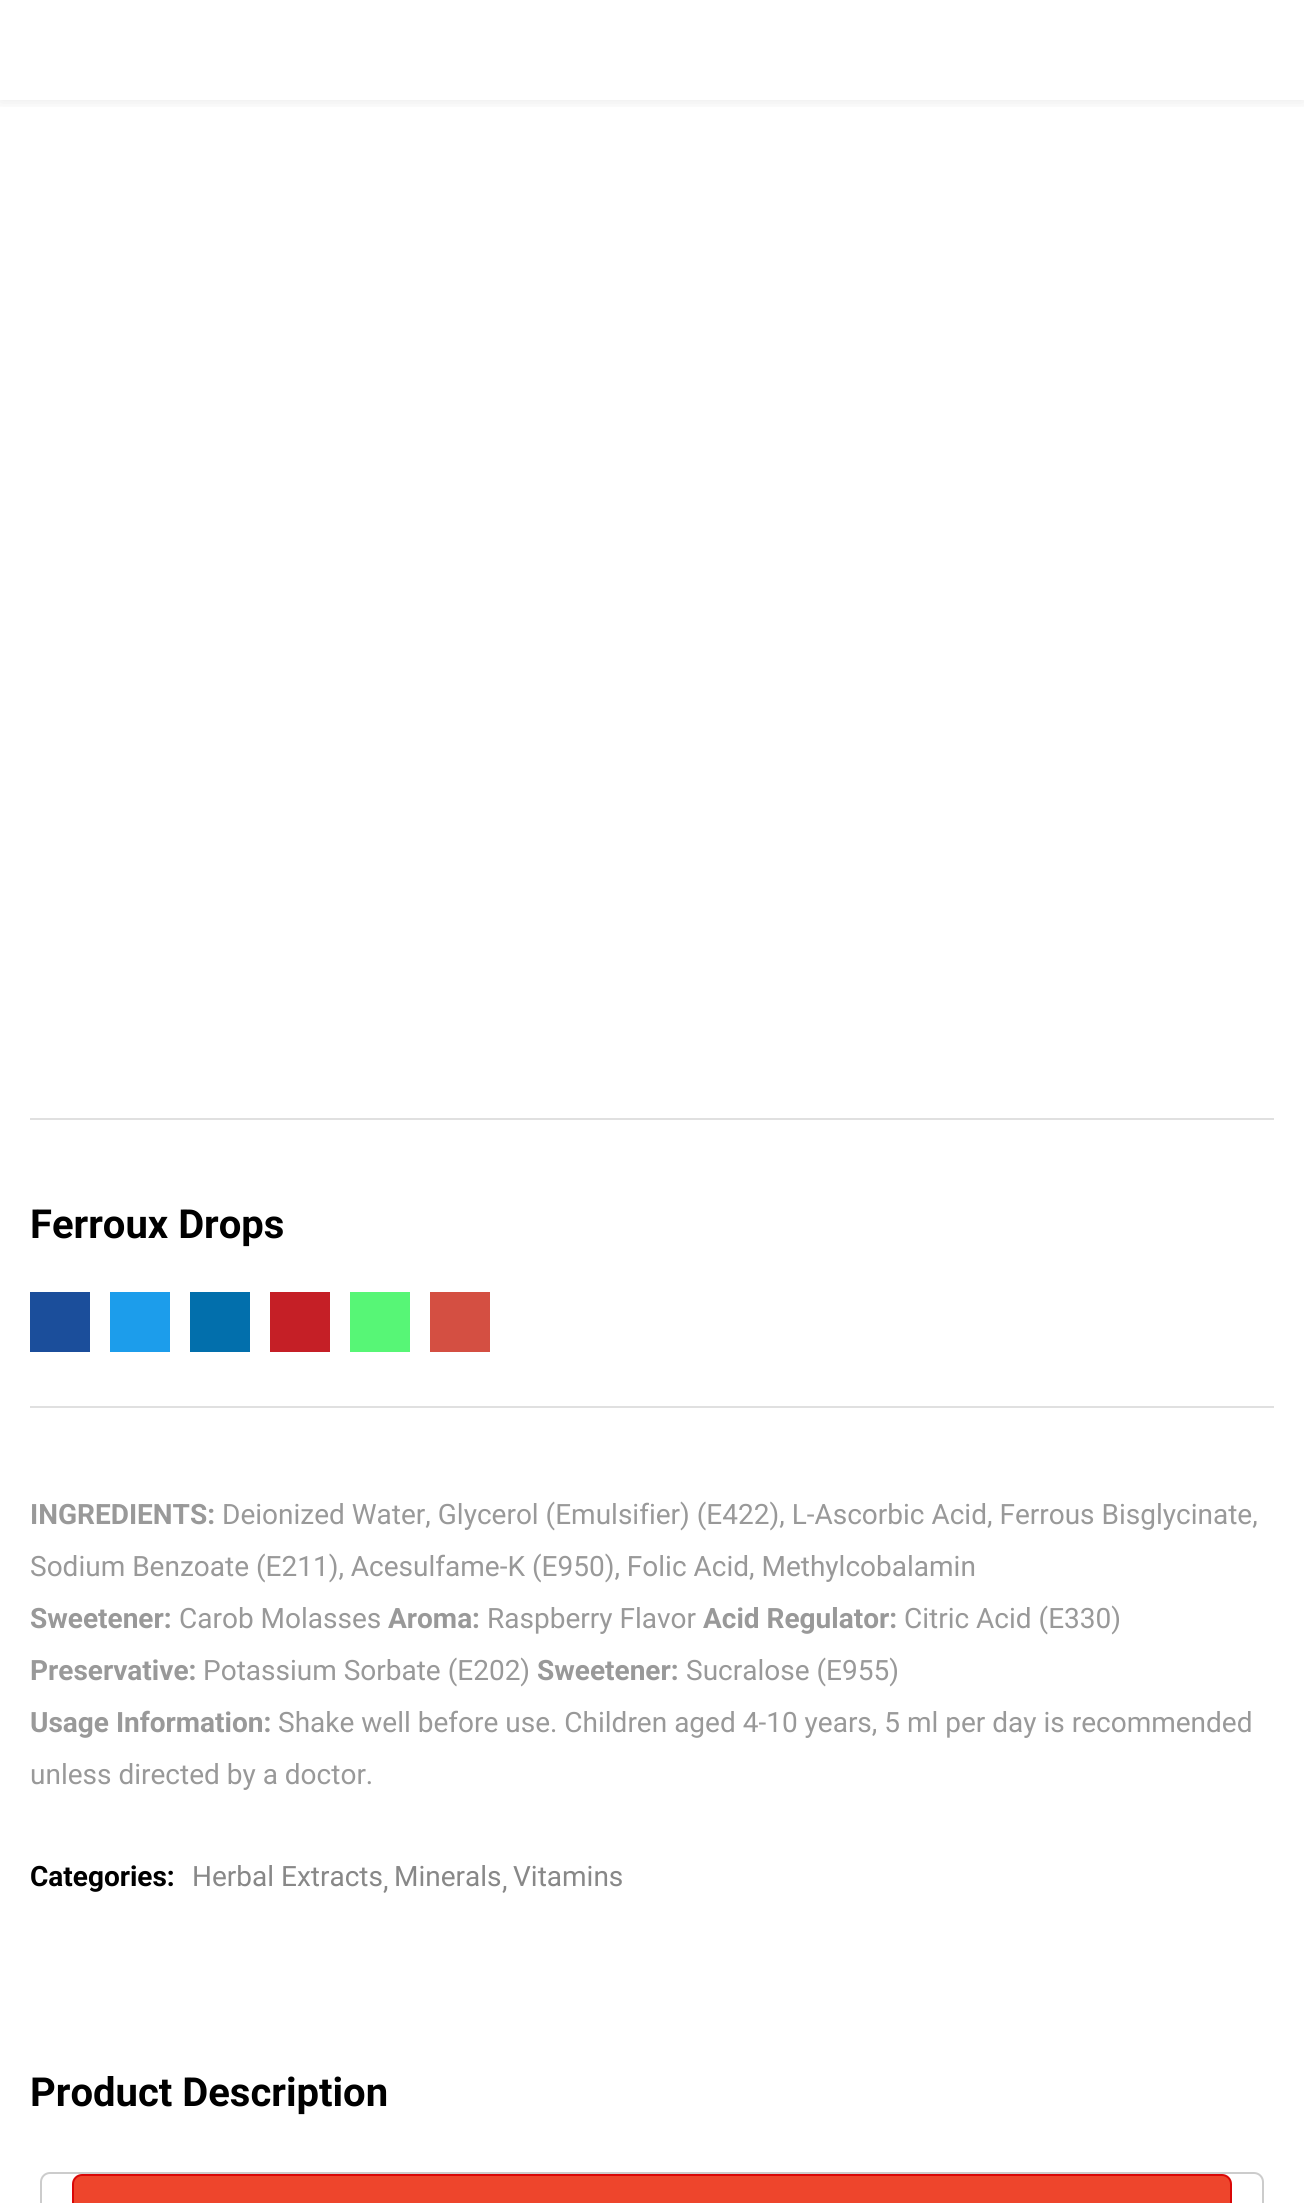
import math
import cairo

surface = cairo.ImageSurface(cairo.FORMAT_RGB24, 1304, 2203)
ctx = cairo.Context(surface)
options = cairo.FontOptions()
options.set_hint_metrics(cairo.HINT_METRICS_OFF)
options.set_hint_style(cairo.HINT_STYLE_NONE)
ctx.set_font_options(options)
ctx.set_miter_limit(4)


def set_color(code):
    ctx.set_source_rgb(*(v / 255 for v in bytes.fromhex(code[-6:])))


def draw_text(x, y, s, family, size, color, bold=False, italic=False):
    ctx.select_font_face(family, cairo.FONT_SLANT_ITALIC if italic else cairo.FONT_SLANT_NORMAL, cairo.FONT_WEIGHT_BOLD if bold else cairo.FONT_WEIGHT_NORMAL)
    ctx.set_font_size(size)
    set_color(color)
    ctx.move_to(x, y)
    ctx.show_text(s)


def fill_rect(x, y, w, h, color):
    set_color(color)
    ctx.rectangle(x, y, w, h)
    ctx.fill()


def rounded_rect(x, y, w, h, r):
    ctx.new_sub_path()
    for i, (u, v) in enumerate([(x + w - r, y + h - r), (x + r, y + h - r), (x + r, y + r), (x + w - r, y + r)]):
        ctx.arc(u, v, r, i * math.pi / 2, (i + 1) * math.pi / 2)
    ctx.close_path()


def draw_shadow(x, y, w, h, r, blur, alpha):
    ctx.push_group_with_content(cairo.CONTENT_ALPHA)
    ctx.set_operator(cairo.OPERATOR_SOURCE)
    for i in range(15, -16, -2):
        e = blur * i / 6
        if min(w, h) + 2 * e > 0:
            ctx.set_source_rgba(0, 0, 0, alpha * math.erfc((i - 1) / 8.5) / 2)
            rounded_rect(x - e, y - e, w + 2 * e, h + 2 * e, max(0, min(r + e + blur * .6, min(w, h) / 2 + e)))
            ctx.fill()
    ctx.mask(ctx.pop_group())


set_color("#ffffff")
ctx.paint()
ctx.save()
ctx.rectangle(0, 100, 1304, 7)
ctx.clip()
set_color("#000000")
draw_shadow(0, 0, 1304, 100, 0, 8, 0.1)
ctx.restore()
fill_rect(30, 1118, 1244, 2, "#e0e0e0")
draw_text(30, 1238, "Ferroux Drops", "Roboto", 40, "#000000", bold=True)
fill_rect(30, 1292, 60, 60, "#1b4e9b")
fill_rect(110, 1292, 60, 60, "#1c9deb")
fill_rect(190, 1292, 60, 60, "#026fac")
fill_rect(270, 1292, 60, 60, "#c51f26")
fill_rect(350, 1292, 60, 60, "#57f676")
fill_rect(430, 1292, 60, 60, "#d44f42")
fill_rect(30, 1406, 1244, 2, "#e0e0e0")
draw_text(30, 1524, "INGREDIENTS:", "Roboto", 28, "#999999", bold=True)
draw_text(222, 1524, "Deionized Water, Glycerol (Emulsifier) (E422), L-Ascorbic Acid, Ferrous Bisglycinate,", "Roboto", 28, "#999999")
draw_text(30, 1576, "Sodium Benzoate (E211), Acesulfame-K (E950), Folic Acid, Methylcobalamin", "Roboto", 28, "#999999")
draw_text(30, 1628, "Sweetener:", "Roboto", 28, "#999999", bold=True)
draw_text(179, 1628, "Carob Molasses", "Roboto", 28, "#999999")
draw_text(388, 1628, "Aroma:", "Roboto", 28, "#999999", bold=True)
draw_text(487, 1628, "Raspberry Flavor", "Roboto", 28, "#999999")
draw_text(703, 1628, "Acid Regulator:", "Roboto", 28, "#999999", bold=True)
draw_text(904, 1628, "Citric Acid (E330)", "Roboto", 28, "#999999")
draw_text(30, 1680, "Preservative:", "Roboto", 28, "#999999", bold=True)
draw_text(203, 1680, "Potassium Sorbate (E202)", "Roboto", 28, "#999999")
draw_text(537, 1680, "Sweetener:", "Roboto", 28, "#999999", bold=True)
draw_text(686, 1680, "Sucralose (E955)", "Roboto", 28, "#999999")
draw_text(30, 1732, "Usage Information:", "Roboto", 28, "#999999", bold=True)
draw_text(278, 1732, "Shake well before use. Children aged 4-10 years, 5 ml per day is recommended", "Roboto", 28, "#999999")
draw_text(30, 1784, "unless directed by a doctor.", "Roboto", 28, "#999999")
draw_text(30, 1886, "Categories:", "Roboto", 28, "#000000", bold=True)
draw_text(192, 1886, "Herbal Extracts", "Roboto", 28, "#888888")
draw_text(394, 1886, "Minerals", "Roboto", 28, "#888888")
draw_text(383, 1889, ",", "Roboto", 28, "#888888")
draw_text(513, 1886, "Vitamins", "Roboto", 28, "#888888")
draw_text(502, 1889, ",", "Roboto", 28, "#888888")
draw_text(30, 2106, "Product Description", "Roboto", 40, "#000000", bold=True)
rounded_rect(41, 2173, 1222, 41, 9)
set_color("#cccccc")
ctx.stroke()
set_color("#ee452c")
rounded_rect(73, 2175, 1158, 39, 9)
ctx.fill_preserve()
set_color("#da0707")
ctx.stroke()
surface.write_to_png("output.png")
